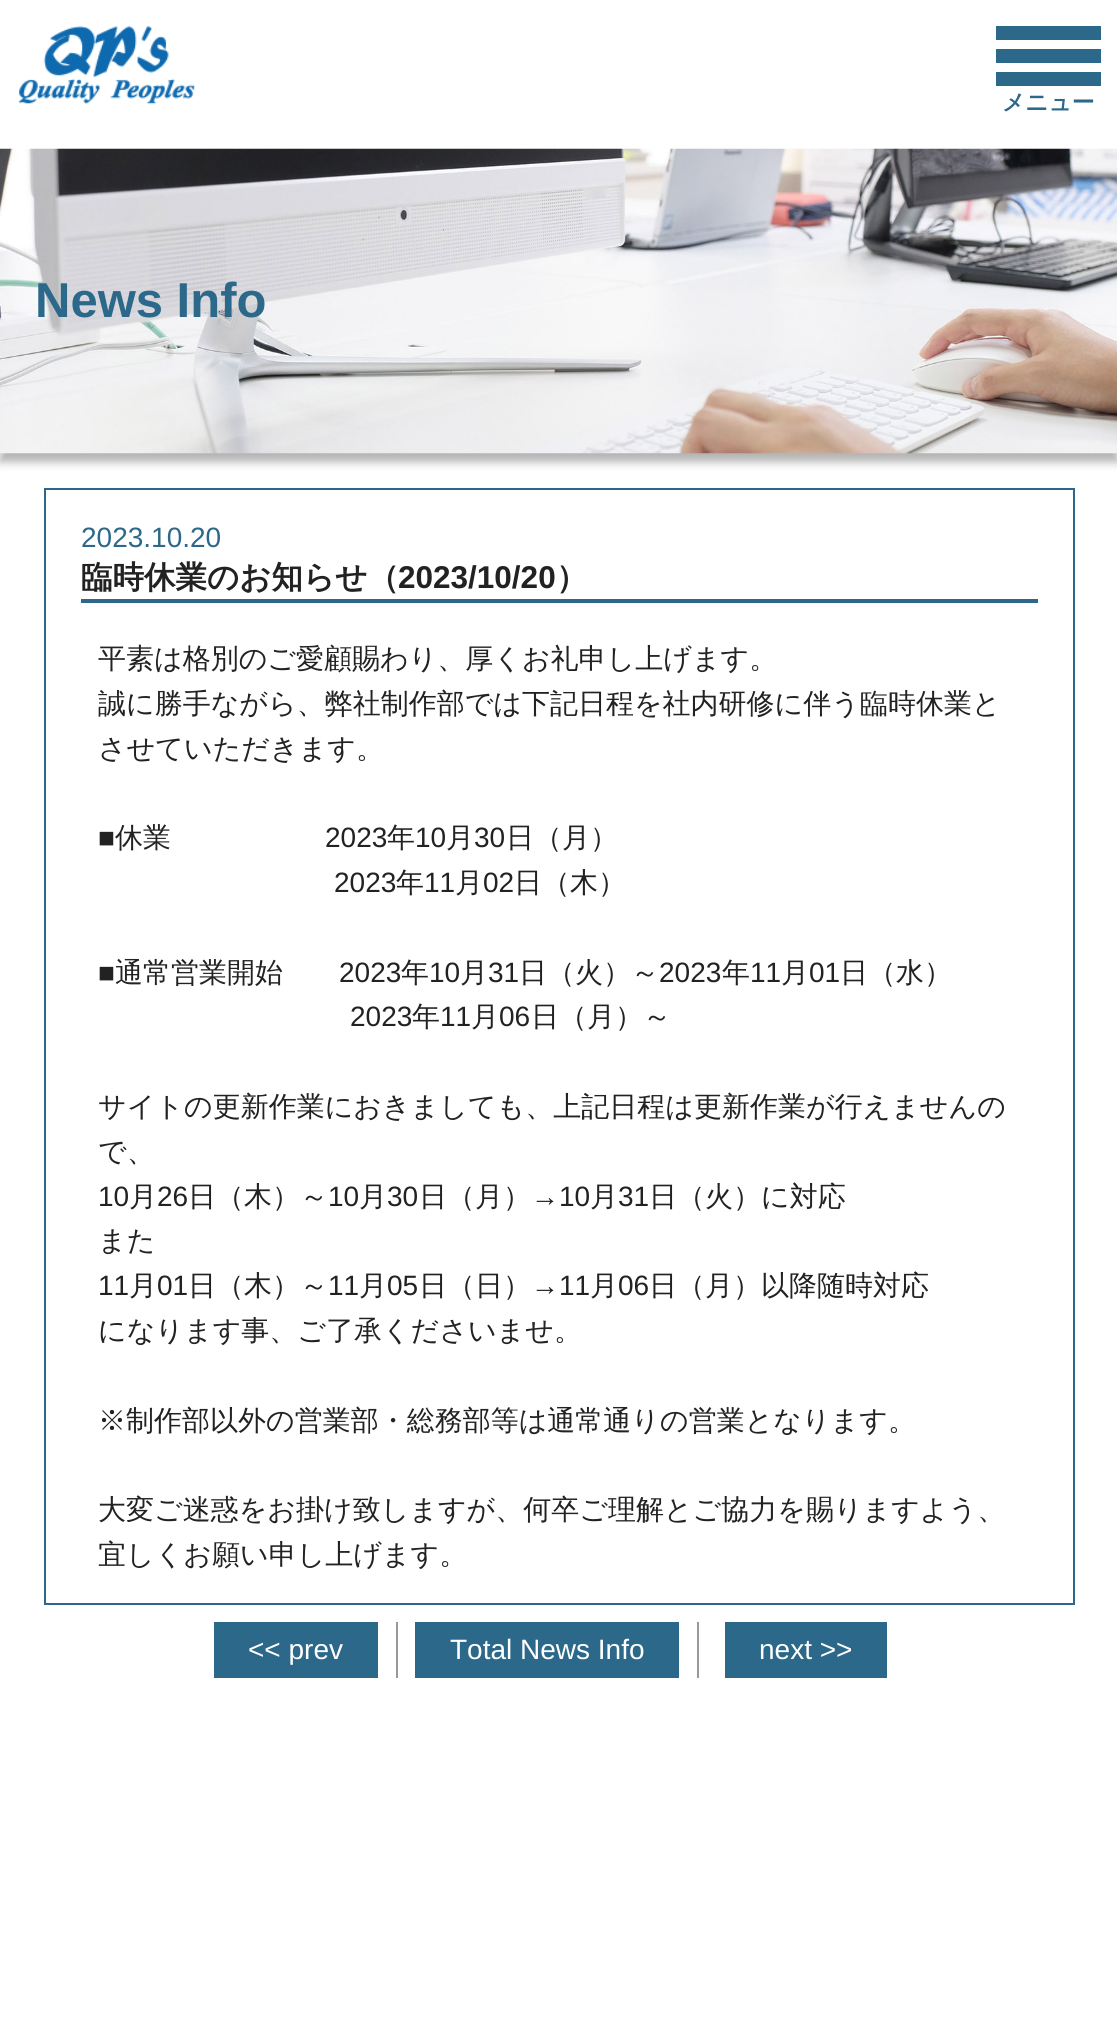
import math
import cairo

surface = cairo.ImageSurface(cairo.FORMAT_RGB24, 1117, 2040)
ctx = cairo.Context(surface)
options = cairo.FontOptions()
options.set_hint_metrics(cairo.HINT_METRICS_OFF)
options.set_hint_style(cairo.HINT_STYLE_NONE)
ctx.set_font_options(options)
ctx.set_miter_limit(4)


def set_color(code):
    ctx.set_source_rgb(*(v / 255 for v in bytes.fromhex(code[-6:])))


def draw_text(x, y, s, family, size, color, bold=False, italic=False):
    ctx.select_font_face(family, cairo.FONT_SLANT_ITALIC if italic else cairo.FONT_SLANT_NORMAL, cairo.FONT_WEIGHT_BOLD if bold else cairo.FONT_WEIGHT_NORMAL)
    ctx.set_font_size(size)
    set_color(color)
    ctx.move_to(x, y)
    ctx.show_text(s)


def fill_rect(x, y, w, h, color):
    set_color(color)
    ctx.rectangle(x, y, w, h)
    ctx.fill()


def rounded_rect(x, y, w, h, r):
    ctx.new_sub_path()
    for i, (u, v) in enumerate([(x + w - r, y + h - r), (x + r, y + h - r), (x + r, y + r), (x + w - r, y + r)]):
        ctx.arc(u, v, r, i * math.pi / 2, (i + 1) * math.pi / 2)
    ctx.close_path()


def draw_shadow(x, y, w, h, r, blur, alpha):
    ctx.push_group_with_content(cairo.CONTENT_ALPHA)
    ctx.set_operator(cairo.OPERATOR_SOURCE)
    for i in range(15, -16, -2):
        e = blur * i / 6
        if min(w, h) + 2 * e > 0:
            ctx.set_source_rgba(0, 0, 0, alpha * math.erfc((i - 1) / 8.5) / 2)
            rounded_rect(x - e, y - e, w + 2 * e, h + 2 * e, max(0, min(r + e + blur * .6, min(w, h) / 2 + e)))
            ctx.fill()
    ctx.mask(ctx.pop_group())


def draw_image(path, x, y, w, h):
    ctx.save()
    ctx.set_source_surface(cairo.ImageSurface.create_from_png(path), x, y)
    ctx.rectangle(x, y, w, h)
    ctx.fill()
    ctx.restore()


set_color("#ffffff")
ctx.paint()
draw_image("assets/img1.png", 19, 26, 176, 78)
fill_rect(996, 26, 105, 14, "#2c6889")
fill_rect(996, 49, 105, 14, "#2c6889")
fill_rect(996, 72, 105, 14, "#2c6889")
draw_text(1002, 110, "メニュー", "WenQuanYi Zen Hei", 22.75, "#2c6889", bold=True)
set_color("#000000")
draw_shadow(0, 158, 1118, 304, 0, 4.5, 0.3)
draw_image("assets/img2.png", 0, 148, 1117, 306)
draw_text(35, 317, "News Info", "Liberation Sans", 49, "#2c6889", bold=True)
ctx.rectangle(45, 489, 1029, 1115)
ctx.stroke()
draw_text(81, 547, "2023.10.20", "Liberation Sans", 28, "#2c6889")
fill_rect(81, 599, 957, 4, "#2c6889")
draw_text(81, 588, "臨時休業のお知らせ（", "WenQuanYi Zen Hei", 31.5, "#222222", bold=True)
draw_text(398, 588, "2023/10/20", "Liberation Sans", 31.5, "#222222", bold=True)
draw_text(556, 588, "）", "WenQuanYi Zen Hei", 31.5, "#222222", bold=True)
draw_text(98, 668, "平素は格別のご愛顧賜わり、厚くお礼申し上げます。", "WenQuanYi Zen Hei Medium", 28, "#222222")
draw_text(98, 713, "誠に勝手ながら、弊社制作部では下記日程を社内研修に伴う臨時休業と", "WenQuanYi Zen Hei Medium", 28, "#222222")
draw_text(98, 758, "させていただきます。", "WenQuanYi Zen Hei Medium", 28, "#222222")
draw_text(98, 847, "■", "Liberation Sans", 28, "#222222")
draw_text(115, 847, "休業", "WenQuanYi Zen Hei Medium", 28, "#222222")
draw_text(325, 847, "2023", "Liberation Sans", 28, "#222222")
draw_text(387, 847, "年", "WenQuanYi Zen Hei Medium", 28, "#222222")
draw_text(415, 847, "10", "Liberation Sans", 28, "#222222")
draw_text(446, 847, "月", "WenQuanYi Zen Hei Medium", 28, "#222222")
draw_text(474, 847, "30", "Liberation Sans", 28, "#222222")
draw_text(506, 847, "日（月）", "WenQuanYi Zen Hei Medium", 28, "#222222")
draw_text(334, 892, "2023", "Liberation Sans", 28, "#222222")
draw_text(396, 892, "年", "WenQuanYi Zen Hei Medium", 28, "#222222")
draw_text(424, 892, "11", "Liberation Sans", 28, "#222222")
draw_text(455, 892, "月", "WenQuanYi Zen Hei Medium", 28, "#222222")
draw_text(483, 892, "02", "Liberation Sans", 28, "#222222")
draw_text(514, 892, "日（木）", "WenQuanYi Zen Hei Medium", 28, "#222222")
draw_text(98, 982, "■", "Liberation Sans", 28, "#222222")
draw_text(115, 982, "通常営業開始", "WenQuanYi Zen Hei Medium", 28, "#222222")
draw_text(339, 982, "2023", "Liberation Sans", 28, "#222222")
draw_text(401, 982, "年", "WenQuanYi Zen Hei Medium", 28, "#222222")
draw_text(429, 982, "10", "Liberation Sans", 28, "#222222")
draw_text(460, 982, "月", "WenQuanYi Zen Hei Medium", 28, "#222222")
draw_text(488, 982, "31", "Liberation Sans", 28, "#222222")
draw_text(519, 982, "日（火）～", "WenQuanYi Zen Hei Medium", 28, "#222222")
draw_text(659, 982, "2023", "Liberation Sans", 28, "#222222")
draw_text(722, 982, "年", "WenQuanYi Zen Hei Medium", 28, "#222222")
draw_text(750, 982, "11", "Liberation Sans", 28, "#222222")
draw_text(781, 982, "月", "WenQuanYi Zen Hei Medium", 28, "#222222")
draw_text(809, 982, "01", "Liberation Sans", 28, "#222222")
draw_text(840, 982, "日（水）", "WenQuanYi Zen Hei Medium", 28, "#222222")
draw_text(350, 1026, "2023", "Liberation Sans", 28, "#222222")
draw_text(412, 1026, "年", "WenQuanYi Zen Hei Medium", 28, "#222222")
draw_text(440, 1026, "11", "Liberation Sans", 28, "#222222")
draw_text(471, 1026, "月", "WenQuanYi Zen Hei Medium", 28, "#222222")
draw_text(499, 1026, "06", "Liberation Sans", 28, "#222222")
draw_text(531, 1026, "日（月）～", "WenQuanYi Zen Hei Medium", 28, "#222222")
draw_text(98, 1116, "サイトの更新作業におきましても、上記日程は更新作業が行えませんの", "WenQuanYi Zen Hei Medium", 28, "#222222")
draw_text(98, 1161, "で、", "WenQuanYi Zen Hei Medium", 28, "#222222")
draw_text(98, 1206, "10", "Liberation Sans", 28, "#222222")
draw_text(129, 1206, "月", "WenQuanYi Zen Hei Medium", 28, "#222222")
draw_text(157, 1206, "26", "Liberation Sans", 28, "#222222")
draw_text(188, 1206, "日（木）～", "WenQuanYi Zen Hei Medium", 28, "#222222")
draw_text(328, 1206, "10", "Liberation Sans", 28, "#222222")
draw_text(359, 1206, "月", "WenQuanYi Zen Hei Medium", 28, "#222222")
draw_text(387, 1206, "30", "Liberation Sans", 28, "#222222")
draw_text(419, 1206, "日（月）", "WenQuanYi Zen Hei Medium", 28, "#222222")
draw_text(531, 1206, "→10", "Liberation Sans", 28, "#222222")
draw_text(590, 1206, "月", "WenQuanYi Zen Hei Medium", 28, "#222222")
draw_text(618, 1206, "31", "Liberation Sans", 28, "#222222")
draw_text(649, 1206, "日（火）に対応", "WenQuanYi Zen Hei Medium", 28, "#222222")
draw_text(98, 1250, "また", "WenQuanYi Zen Hei Medium", 28, "#222222")
draw_text(98, 1295, "11", "Liberation Sans", 28, "#222222")
draw_text(129, 1295, "月", "WenQuanYi Zen Hei Medium", 28, "#222222")
draw_text(157, 1295, "01", "Liberation Sans", 28, "#222222")
draw_text(188, 1295, "日（木）～", "WenQuanYi Zen Hei Medium", 28, "#222222")
draw_text(328, 1295, "11", "Liberation Sans", 28, "#222222")
draw_text(359, 1295, "月", "WenQuanYi Zen Hei Medium", 28, "#222222")
draw_text(387, 1295, "05", "Liberation Sans", 28, "#222222")
draw_text(419, 1295, "日（日）", "WenQuanYi Zen Hei Medium", 28, "#222222")
draw_text(531, 1295, "→11", "Liberation Sans", 28, "#222222")
draw_text(590, 1295, "月", "WenQuanYi Zen Hei Medium", 28, "#222222")
draw_text(618, 1295, "06", "Liberation Sans", 28, "#222222")
draw_text(649, 1295, "日（月）以降随時対応", "WenQuanYi Zen Hei Medium", 28, "#222222")
draw_text(98, 1340, "になります事、ご了承くださいませ。", "WenQuanYi Zen Hei Medium", 28, "#222222")
draw_text(98, 1430, "※制作部以外の営業部・総務部等は通常通りの営業となります。", "WenQuanYi Zen Hei Medium", 28, "#222222")
draw_text(98, 1519, "大変ご迷惑をお掛け致しますが、何卒ご理解とご協力を賜りますよう、", "WenQuanYi Zen Hei Medium", 28, "#222222")
draw_text(98, 1564, "宜しくお願い申し上げます。", "WenQuanYi Zen Hei Medium", 28, "#222222")
fill_rect(214, 1622, 164, 56, "#2c6889")
draw_text(248, 1659, "<< prev", "Liberation Sans", 28, "#ffffff")
fill_rect(697, 1622, 2, 56, "#999999")
fill_rect(396, 1622, 2, 56, "#999999")
fill_rect(415, 1622, 264, 56, "#2c6889")
draw_text(450, 1659, "Total News Info", "Liberation Sans", 28, "#ffffff")
fill_rect(725, 1622, 162, 56, "#2c6889")
draw_text(759, 1659, "next >>", "Liberation Sans", 28, "#ffffff")
surface.write_to_png("output.png")
